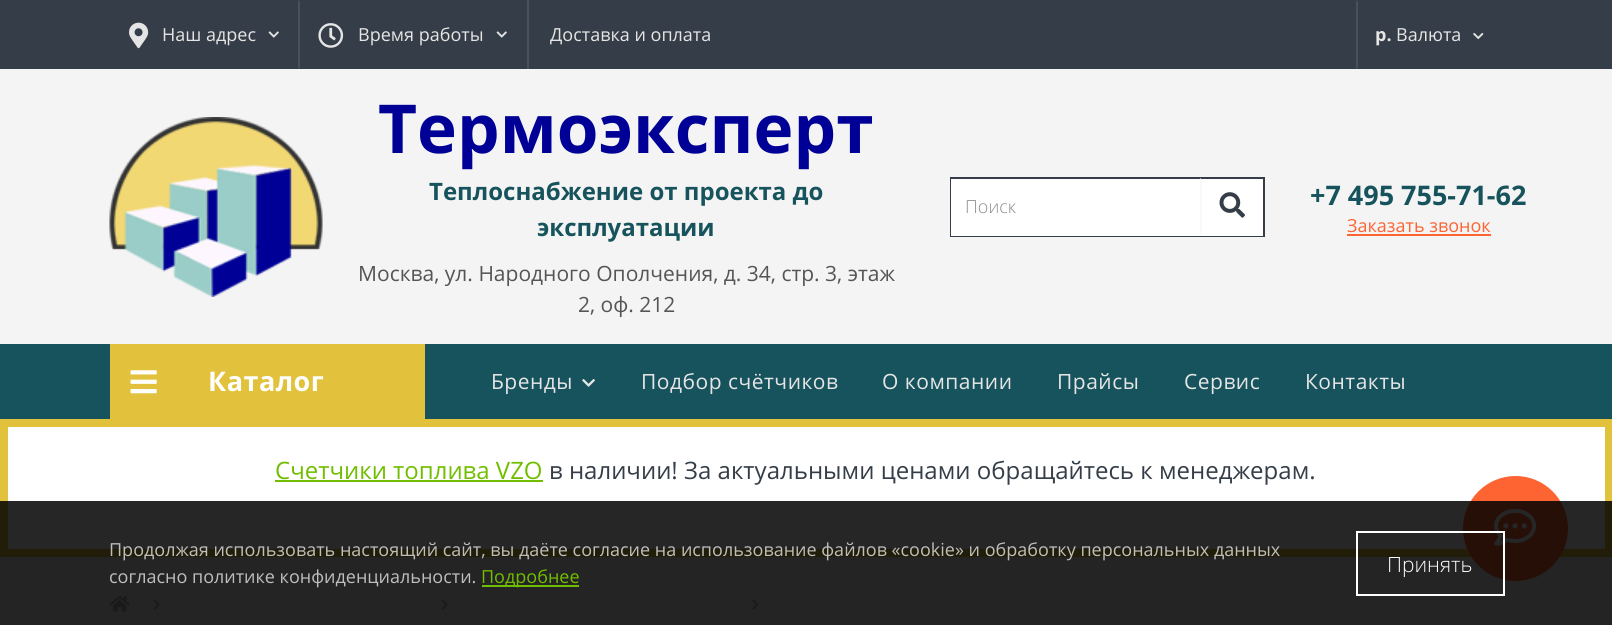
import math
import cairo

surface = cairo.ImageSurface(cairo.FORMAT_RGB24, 1612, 625)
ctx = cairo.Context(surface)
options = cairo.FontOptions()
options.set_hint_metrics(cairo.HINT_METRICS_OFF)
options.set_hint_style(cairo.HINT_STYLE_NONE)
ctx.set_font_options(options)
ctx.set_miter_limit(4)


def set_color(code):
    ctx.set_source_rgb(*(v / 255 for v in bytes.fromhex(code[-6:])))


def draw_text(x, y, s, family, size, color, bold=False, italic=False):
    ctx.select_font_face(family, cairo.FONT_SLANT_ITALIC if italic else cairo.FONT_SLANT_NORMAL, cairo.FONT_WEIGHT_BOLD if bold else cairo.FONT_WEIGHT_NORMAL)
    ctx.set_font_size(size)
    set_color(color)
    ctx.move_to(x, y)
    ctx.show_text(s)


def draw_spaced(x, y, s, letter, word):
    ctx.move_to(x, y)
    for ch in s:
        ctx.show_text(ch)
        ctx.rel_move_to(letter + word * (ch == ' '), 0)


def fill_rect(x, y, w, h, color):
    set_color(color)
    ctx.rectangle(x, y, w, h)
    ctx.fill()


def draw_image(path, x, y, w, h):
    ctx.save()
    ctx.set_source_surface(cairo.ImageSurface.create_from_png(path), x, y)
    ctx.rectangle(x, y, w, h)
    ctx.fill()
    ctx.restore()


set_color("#f4f4f4")
ctx.paint()
fill_rect(0, 0, 1612, 69, "#353e48")
draw_image("assets/img1.png", 129, 22, 20, 27)
draw_text(162, 41, "Наш адрес", "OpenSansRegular", 18, "#e5e5e5")
draw_image("assets/img2.png", 268, 31, 11, 7)
set_color("#49515a")
ctx.new_path()
ctx.move_to(298, 69)
ctx.line_to(298, 0)
ctx.line_to(300, 2)
ctx.line_to(300, 68)
ctx.close_path()
ctx.fill()
draw_image("assets/img3.png", 318, 23, 26, 25)
draw_text(358, 41, "Время работы", "OpenSansRegular", 18, "#e5e5e5")
draw_image("assets/img2.png", 496, 31, 11, 7)
fill_rect(527, 0, 2, 69, "#49515a")
draw_text(550, 41, "Доставка и оплата", "OpenSansRegular", 18, "#e5e5e5")
set_color("#49515a")
ctx.new_path()
ctx.move_to(1356, 69)
ctx.line_to(1356, 0)
ctx.line_to(1358, 2)
ctx.line_to(1358, 68)
ctx.close_path()
ctx.fill()
draw_text(1375, 41, "р.", "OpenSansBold", 18, "#e5e5e5", bold=True)
draw_text(1396, 41, "Валюта", "OpenSansRegular", 18, "#e5e5e5")
draw_image("assets/img4.png", 1473, 32, 11, 8)
draw_image("assets/img5.png", 109, 117, 214, 180)
draw_text(378, 153, "Термоэксперт", "OpenSansBold", 67.5, "#000097", bold=True)
draw_text(429, 200, "Теплоснабжение от проекта до", "OpenSansBold", 24, "#17535d", bold=True)
draw_text(537, 236, "эксплуатации", "OpenSansBold", 24, "#17535d", bold=True)
draw_text(358, 281, "Москва, ул. Народного Ополчения, д. 34, стр. 3, этаж", "OpenSansRegular", 21, "#555555")
draw_text(578, 312, "2, оф. 212", "OpenSansRegular", 21, "#555555")
ctx.rectangle(951, 178, 313, 58)
set_color("#353e48")
ctx.stroke()
fill_rect(951, 179, 312, 57, "#ffffff")
draw_text(965, 213, "Поиск", "Open Sans Light", 18, "#8d8d8d")
set_color("#f9f9f9")
ctx.new_path()
ctx.move_to(1200, 236)
ctx.line_to(1200, 178)
ctx.line_to(1202, 180)
ctx.line_to(1202, 234)
ctx.close_path()
ctx.fill()
draw_image("assets/img6.png", 1219, 192, 26, 26)
draw_text(1310, 205, "+7 495 755-71-62", "OpenSansBold", 27, "#17535d", bold=True)
draw_text(1347, 232, "Заказать звонок", "OpenSansRegular", 18, "#fd6432")
fill_rect(1347, 234, 144, 2, "#fd6432")
fill_rect(0, 344, 1612, 75, "#17535d")
fill_rect(110, 344, 315, 75, "#e2c23c")
draw_image("assets/img7.png", 130, 370, 27, 24)
ctx.select_font_face("OpenSansBold", cairo.FONT_SLANT_NORMAL, cairo.FONT_WEIGHT_BOLD)
ctx.set_font_size(27)
set_color("#ffffff")
draw_spaced(208, 391, "Каталог", 0.5, 0)
ctx.select_font_face("OpenSansRegular")
ctx.set_font_size(21)
set_color("#e5e5e5")
draw_spaced(491, 389, "Бренды", 0.5, 0)
draw_image("assets/img8.png", 582, 379, 13, 8)
draw_spaced(641, 389, "Подбор счётчиков", 0.5, 0)
draw_spaced(882, 389, "О компании", 0.5, 0)
draw_spaced(1057, 389, "Прайсы", 0.5, 0)
draw_spaced(1184, 389, "Сервис", 0.5, 0)
draw_spaced(1305, 389, "Контакты", 0.5, 0)
set_color("#ffffff")
ctx.rectangle(4, 423, 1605, 130)
ctx.fill_preserve()
set_color("#e2c23c")
ctx.set_line_width(8)
ctx.stroke()
draw_text(275, 479, "Счетчики топлива VZO", "OpenSansRegular", 24, "#71be00")
fill_rect(275, 480, 268, 2, "#71be00")
draw_text(549, 479, "в наличии! За актуальными ценами обращайтесь к менеджерам.", "OpenSansRegular", 24, "#353e48")
set_color("#fd6432")
ctx.new_path()
ctx.arc(1515.5, 528.5, 52.5, 0, 2 * math.pi)
ctx.fill()
draw_image("assets/img9.png", 1494, 508, 43, 38)
draw_image("assets/img10.png", 109, 595, 21, 17)
draw_image("assets/img11.png", 153, 599, 7, 11)
draw_image("assets/img11.png", 441, 599, 7, 11)
draw_image("assets/img12.png", 752, 599, 7, 11)
ctx.set_source_rgba(0, 0, 0, 0.85)
ctx.rectangle(0, 501, 1612, 124)
ctx.fill()
draw_text(109, 556, "Продолжая использовать настоящий сайт, вы даёте согласие на использование файлов «cookie» и обработку персональных данных", "OpenSansRegular", 18, "#bebebe")
draw_text(109, 583, "согласно политике конфиденциальности.", "OpenSansRegular", 18, "#bebebe")
fill_rect(482, 585, 97, 2, "#71be00")
draw_text(481, 583, "Подробнее", "OpenSansRegular", 18, "#71be00")
ctx.rectangle(1357, 532, 147, 63)
set_color("#ffffff")
ctx.set_line_width(2)
ctx.stroke()
draw_text(1387, 572, "Принять", "Open Sans Light", 21, "#ffffff")
surface.write_to_png("output.png")
